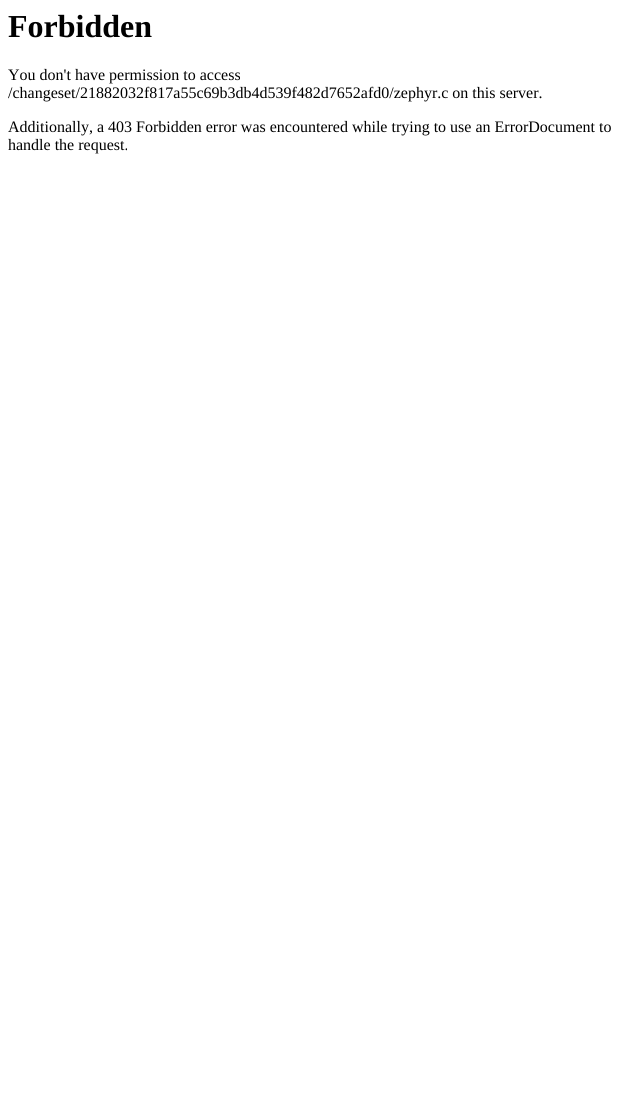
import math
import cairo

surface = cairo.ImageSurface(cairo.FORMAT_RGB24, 630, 1096)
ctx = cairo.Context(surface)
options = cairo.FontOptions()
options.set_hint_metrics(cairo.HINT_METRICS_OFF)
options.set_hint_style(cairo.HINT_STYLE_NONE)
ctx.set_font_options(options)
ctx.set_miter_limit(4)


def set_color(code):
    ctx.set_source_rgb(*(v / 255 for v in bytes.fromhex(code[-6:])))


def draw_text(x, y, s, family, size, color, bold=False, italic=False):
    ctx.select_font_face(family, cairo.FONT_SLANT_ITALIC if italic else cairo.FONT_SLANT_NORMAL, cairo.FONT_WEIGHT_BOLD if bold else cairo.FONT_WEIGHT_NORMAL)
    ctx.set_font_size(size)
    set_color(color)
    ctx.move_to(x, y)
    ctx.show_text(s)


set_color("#ffffff")
ctx.paint()
draw_text(8, 37, "Forbidden", "Liberation Serif", 32, "#000000", bold=True)
draw_text(8, 80, "You don't have permission to access", "Liberation Serif", 16, "#000000")
draw_text(8, 98, "/changeset/21882032f817a55c69b3db4d539f482d7652afd0/zephyr.c on this server.", "Liberation Serif", 16, "#000000")
draw_text(8, 132, "Additionally, a 403 Forbidden error was encountered while trying to use an ErrorDocument to", "Liberation Serif", 16, "#000000")
draw_text(8, 150, "handle the request.", "Liberation Serif", 16, "#000000")
surface.write_to_png("output.png")
